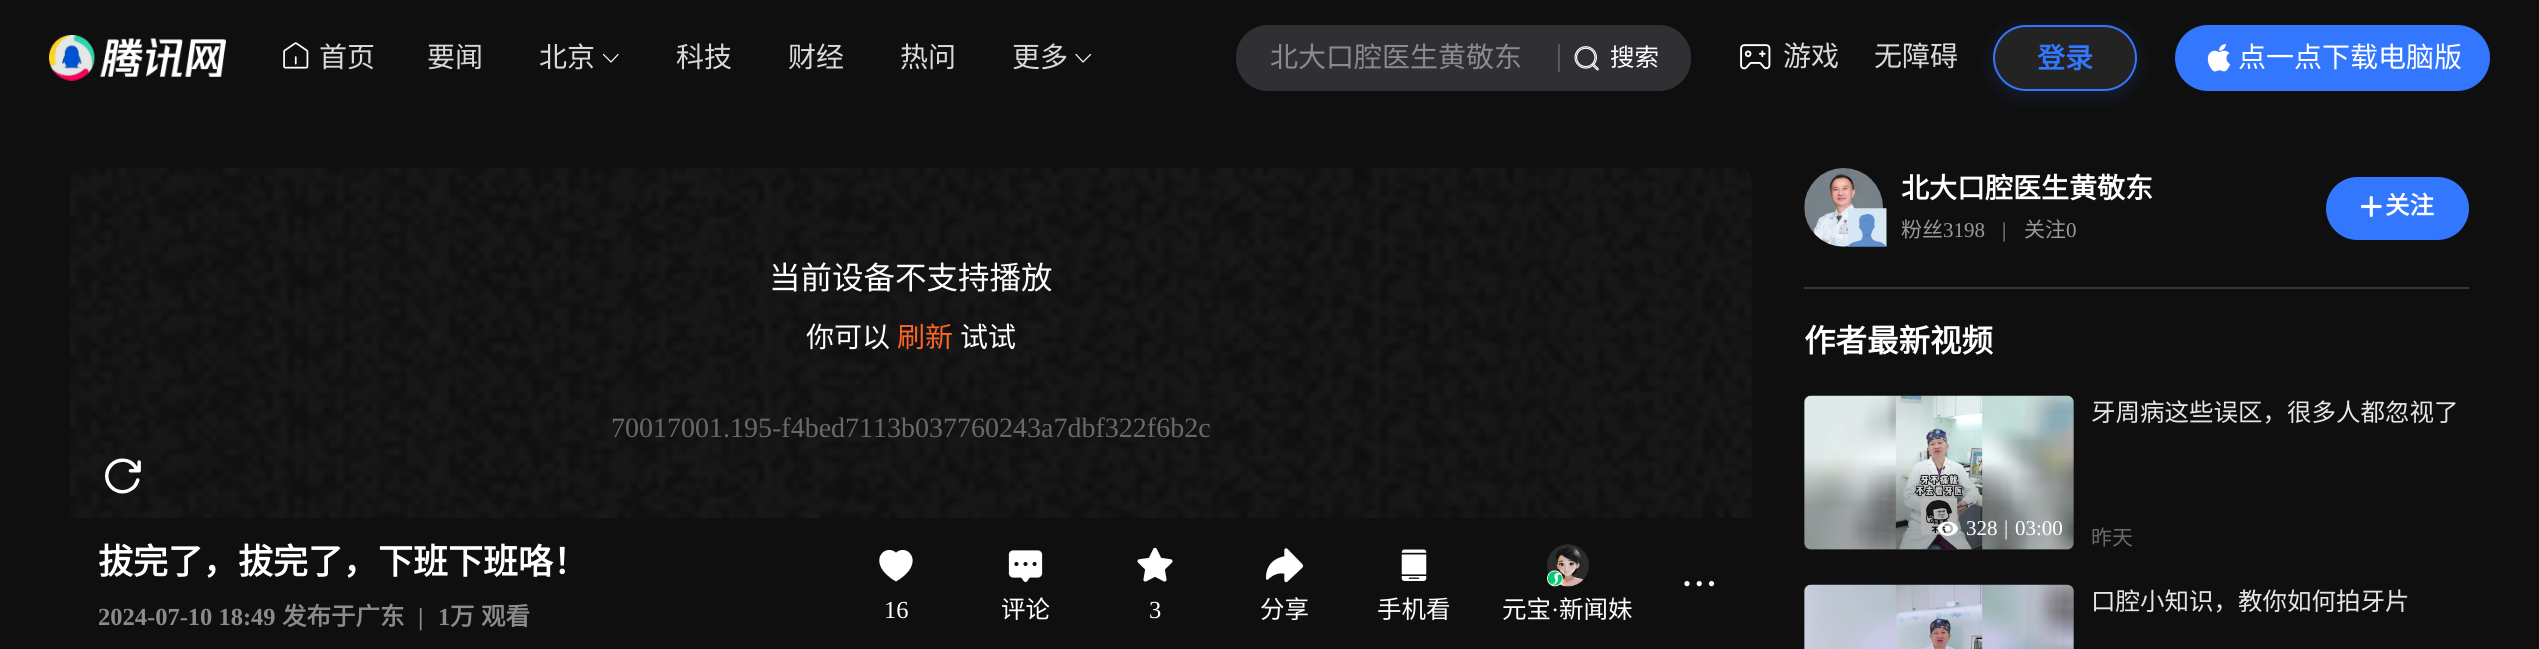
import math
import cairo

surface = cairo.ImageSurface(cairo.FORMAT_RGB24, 2539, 649)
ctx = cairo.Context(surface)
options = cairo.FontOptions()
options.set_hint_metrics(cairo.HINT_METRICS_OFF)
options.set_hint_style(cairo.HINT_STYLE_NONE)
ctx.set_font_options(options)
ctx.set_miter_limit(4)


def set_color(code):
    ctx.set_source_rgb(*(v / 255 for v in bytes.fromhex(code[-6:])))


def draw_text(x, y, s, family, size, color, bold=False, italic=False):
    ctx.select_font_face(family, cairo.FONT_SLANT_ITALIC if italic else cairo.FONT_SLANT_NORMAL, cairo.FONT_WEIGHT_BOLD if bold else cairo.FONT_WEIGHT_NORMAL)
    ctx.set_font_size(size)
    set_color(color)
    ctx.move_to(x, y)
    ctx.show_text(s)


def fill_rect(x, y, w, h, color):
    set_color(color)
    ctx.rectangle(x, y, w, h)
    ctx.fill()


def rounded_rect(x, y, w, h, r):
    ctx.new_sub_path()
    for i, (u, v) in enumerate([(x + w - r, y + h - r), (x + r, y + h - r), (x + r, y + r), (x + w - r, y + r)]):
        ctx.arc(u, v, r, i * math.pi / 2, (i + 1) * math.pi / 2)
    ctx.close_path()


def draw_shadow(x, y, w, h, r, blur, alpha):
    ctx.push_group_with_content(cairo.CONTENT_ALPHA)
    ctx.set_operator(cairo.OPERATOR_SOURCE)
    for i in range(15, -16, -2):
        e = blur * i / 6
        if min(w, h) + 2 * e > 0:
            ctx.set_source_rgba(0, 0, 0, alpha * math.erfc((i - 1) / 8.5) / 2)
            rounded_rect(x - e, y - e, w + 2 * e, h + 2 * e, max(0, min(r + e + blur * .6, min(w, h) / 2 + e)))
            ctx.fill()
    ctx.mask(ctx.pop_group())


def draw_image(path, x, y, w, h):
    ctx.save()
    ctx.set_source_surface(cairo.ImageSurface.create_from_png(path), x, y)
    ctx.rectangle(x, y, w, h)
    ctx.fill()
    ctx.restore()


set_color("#0f0f0f")
ctx.paint()
draw_image("assets/img1.png", 49, 35, 177, 46)
draw_image("assets/img2.png", 283, 42, 26, 27)
draw_text(319, 67, "首页", "Noto Sans CJK SC", 28, "#d9d9d9")
draw_text(427, 67, "要闻", "Noto Sans CJK SC", 28, "#d9d9d9")
draw_text(539, 67, "北京", "Noto Sans CJK SC", 28, "#d9d9d9")
ctx.new_path()
ctx.move_to(618, 54.5)
ctx.line_to(611, 62)
ctx.line_to(603.5, 54.5)
set_color("#ffffff")
ctx.set_line_width(1.2)
ctx.set_line_cap(cairo.LINE_CAP_ROUND)
ctx.set_line_join(cairo.LINE_JOIN_ROUND)
ctx.stroke()
draw_text(676, 67, "科技", "Noto Sans CJK SC", 28, "#d9d9d9")
draw_text(788, 67, "财经", "Noto Sans CJK SC", 28, "#d9d9d9")
draw_text(900, 67, "热问", "Noto Sans CJK SC", 28, "#d9d9d9")
draw_text(1012, 67, "更多", "Noto Sans CJK SC", 28, "#d9d9d9")
ctx.new_path()
ctx.move_to(1090.5, 54.5)
ctx.line_to(1083, 62)
ctx.line_to(1076, 54.5)
set_color("#ffffff")
ctx.stroke()
set_color("#2f2f34")
rounded_rect(1236, 25, 455, 66, 32)
ctx.fill()
draw_text(1270, 67, "北大口腔医生黄敬东", "Noto Sans CJK SC", 28, "#8b8b8b")
fill_rect(1558, 44, 2, 28, "#59595d")
draw_image("assets/img3.png", 1574, 46, 25, 25)
draw_text(1610, 66, "搜索", "Noto Sans CJK SC", 24.5, "#ffffff")
draw_image("assets/img4.png", 1740, 44, 31, 26)
draw_text(1783, 66, "游戏", "Noto Sans CJK SC", 28, "#d9d9d9")
draw_text(1874, 66, "无障碍", "Noto Sans CJK SC", 28, "#d9d9d9")
ctx.save()
ctx.set_fill_rule(cairo.FILL_RULE_EVEN_ODD)
ctx.new_path()
ctx.move_to(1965, 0)
ctx.line_to(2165, 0)
ctx.line_to(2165, 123)
ctx.line_to(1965, 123)
ctx.close_path()
ctx.move_to(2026, 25)
ctx.line_to(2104, 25)
ctx.curve_to(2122, 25, 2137, 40, 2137, 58)
ctx.curve_to(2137, 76, 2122, 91, 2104, 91)
ctx.line_to(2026, 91)
ctx.curve_to(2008, 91, 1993, 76, 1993, 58)
ctx.curve_to(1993, 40, 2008, 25, 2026, 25)
ctx.close_path()
ctx.clip()
set_color("#3377ff")
draw_shadow(1993, 28, 144, 67, 33.5, 9, 0.16)
ctx.restore()
ctx.set_source_rgba(0.851, 0.851, 0.851, 0.1)
rounded_rect(1994, 26, 142, 64, 32)
ctx.fill_preserve()
set_color("#3377ff")
ctx.set_line_width(2)
ctx.set_line_cap(cairo.LINE_CAP_BUTT)
ctx.set_line_join(cairo.LINE_JOIN_MITER)
ctx.stroke()
draw_text(2037, 68, "登录", "Noto Sans CJK SC", 28, "#3377ff", bold=True)
rounded_rect(2175, 25, 315, 66, 33)
ctx.fill()
draw_image("assets/img5.png", 2207, 44, 24, 28)
draw_text(2238, 67, "点一点下载电脑版", "Noto Sans CJK SC", 28, "#ffffff")
draw_image("assets/img6.png", 70, 168, 1682, 350)
draw_text(769, 289, "当前设备不支持播放", "Noto Sans CJK SC", 31.5, "#ffffff")
draw_text(806, 347, "你可以", "Noto Sans CJK SC", 28, "#ffffff")
draw_text(897, 347, "刷新", "Noto Sans CJK SC", 28, "#fc6526")
draw_text(960, 347, "试试", "Noto Sans CJK SC", 28, "#ffffff")
draw_text(611, 437, "70017001.195-f4bed7113b037760243a7dbf322f6b2c", "Liberation Serif", 28, "#696969")
draw_text(98, 574, "拔完了，拔完了，下班下班咯！", "Noto Sans CJK SC", 35, "#ffffff", bold=True)
draw_text(98, 625, "2024-07-10 18:49", "Liberation Serif", 24.5, "#8b8b8b", bold=True)
draw_text(282, 625, "发布于广东", "Noto Sans CJK SC", 24.5, "#8b8b8b", bold=True)
draw_text(418, 625, "|", "Liberation Serif", 24.5, "#8b8b8b", bold=True)
draw_text(438, 625, "1", "Liberation Serif", 24.5, "#8b8b8b", bold=True)
draw_text(450, 625, "万", "Noto Sans CJK SC", 24.5, "#8b8b8b", bold=True)
draw_text(481, 625, "观看", "Noto Sans CJK SC", 24.5, "#8b8b8b", bold=True)
draw_image("assets/img7.png", 1684, 581, 31, 6)
draw_image("assets/img8.png", 879, 549, 34, 33)
draw_text(884, 618, "16", "Liberation Serif", 24.5, "#ffffff")
draw_image("assets/img9.png", 1008, 550, 35, 32)
draw_text(1001, 618, "评论", "Noto Sans CJK SC", 24.5, "#ffffff")
draw_image("assets/img10.png", 1137, 547, 36, 35)
draw_text(1149, 618, "3", "Liberation Serif", 24.5, "#ffffff")
draw_image("assets/img11.png", 1266, 548, 37, 35)
draw_text(1260, 618, "分享", "Noto Sans CJK SC", 24.5, "#ffffff")
draw_image("assets/img12.png", 1401, 549, 26, 32)
draw_text(1377, 618, "手机看", "Noto Sans CJK SC", 24.5, "#ffffff")
draw_image("assets/img13.png", 1547, 544, 42, 43)
draw_image("assets/img14.png", 1547, 570, 16, 17)
draw_text(1502, 618, "元宝", "Noto Sans CJK SC", 24.5, "#ffffff")
draw_text(1551, 618, "·", "Liberation Serif", 24.5, "#ffffff")
draw_text(1559, 618, "新闻妹", "Noto Sans CJK SC", 24.5, "#ffffff")
draw_image("assets/img15.png", 1804, 168, 79, 79)
draw_image("assets/img16.png", 1848, 208, 39, 39)
draw_text(1901, 198, "北大口腔医生黄敬东", "Noto Sans CJK SC", 28, "#ffffff", bold=True)
draw_text(1901, 237, "粉丝", "Noto Sans CJK SC", 21, "#999999")
draw_text(1943, 237, "3198", "Liberation Serif", 21, "#999999")
draw_text(2002, 237, "|", "Liberation Serif", 21, "#999999")
draw_text(2024, 237, "关注", "Noto Sans CJK SC", 21, "#999999")
draw_text(2066, 237, "0", "Liberation Serif", 21, "#999999")
set_color("#3377ff")
rounded_rect(2326, 177, 143, 63, 31.5)
ctx.fill()
draw_image("assets/img17.png", 2361, 196, 21, 21)
draw_text(2385, 214, "关注", "Noto Sans CJK SC", 24.5, "#ffffff", bold=True)
fill_rect(1804, 287, 665, 2, "#383838")
draw_text(1804, 352, "作者最新视频", "Noto Sans CJK SC", 31.5, "#ffffff", bold=True)
set_color("#333333")
rounded_rect(1804, 396, 270, 154, 7)
ctx.fill()
draw_image("assets/img18.png", 1804, 395, 270, 155)
gradient = cairo.LinearGradient(1939, 550, 1939, 396)
gradient.add_color_stop_rgba(0.3, 0, 0, 0, 0.3)
gradient.add_color_stop_rgba(0.6, 0, 0, 0, 0)
ctx.set_source(gradient)
rounded_rect(1804, 396, 270, 154, 7)
ctx.fill()
draw_image("assets/img19.png", 1937, 521, 21, 15)
draw_text(1966, 535, "328", "Liberation Serif", 21, "#ffffff")
draw_text(2004, 535, "|", "Liberation Serif", 21, "#ffffff")
draw_text(2015, 535, "03:00", "Liberation Serif", 21, "#ffffff")
draw_text(2091, 421, "牙周病这些误区，很多人都忽视了", "Noto Sans CJK SC", 24.5, "#e6e6e6")
draw_text(2091, 545, "昨天", "Noto Sans CJK SC", 21, "#696969")
set_color("#333333")
rounded_rect(1804, 585, 270, 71, 7)
ctx.fill()
draw_image("assets/img20.png", 1804, 584, 270, 65)
draw_text(2091, 610, "口腔小知识，教你如何拍牙片", "Noto Sans CJK SC", 24.5, "#e6e6e6")
surface.write_to_png("output.png")
